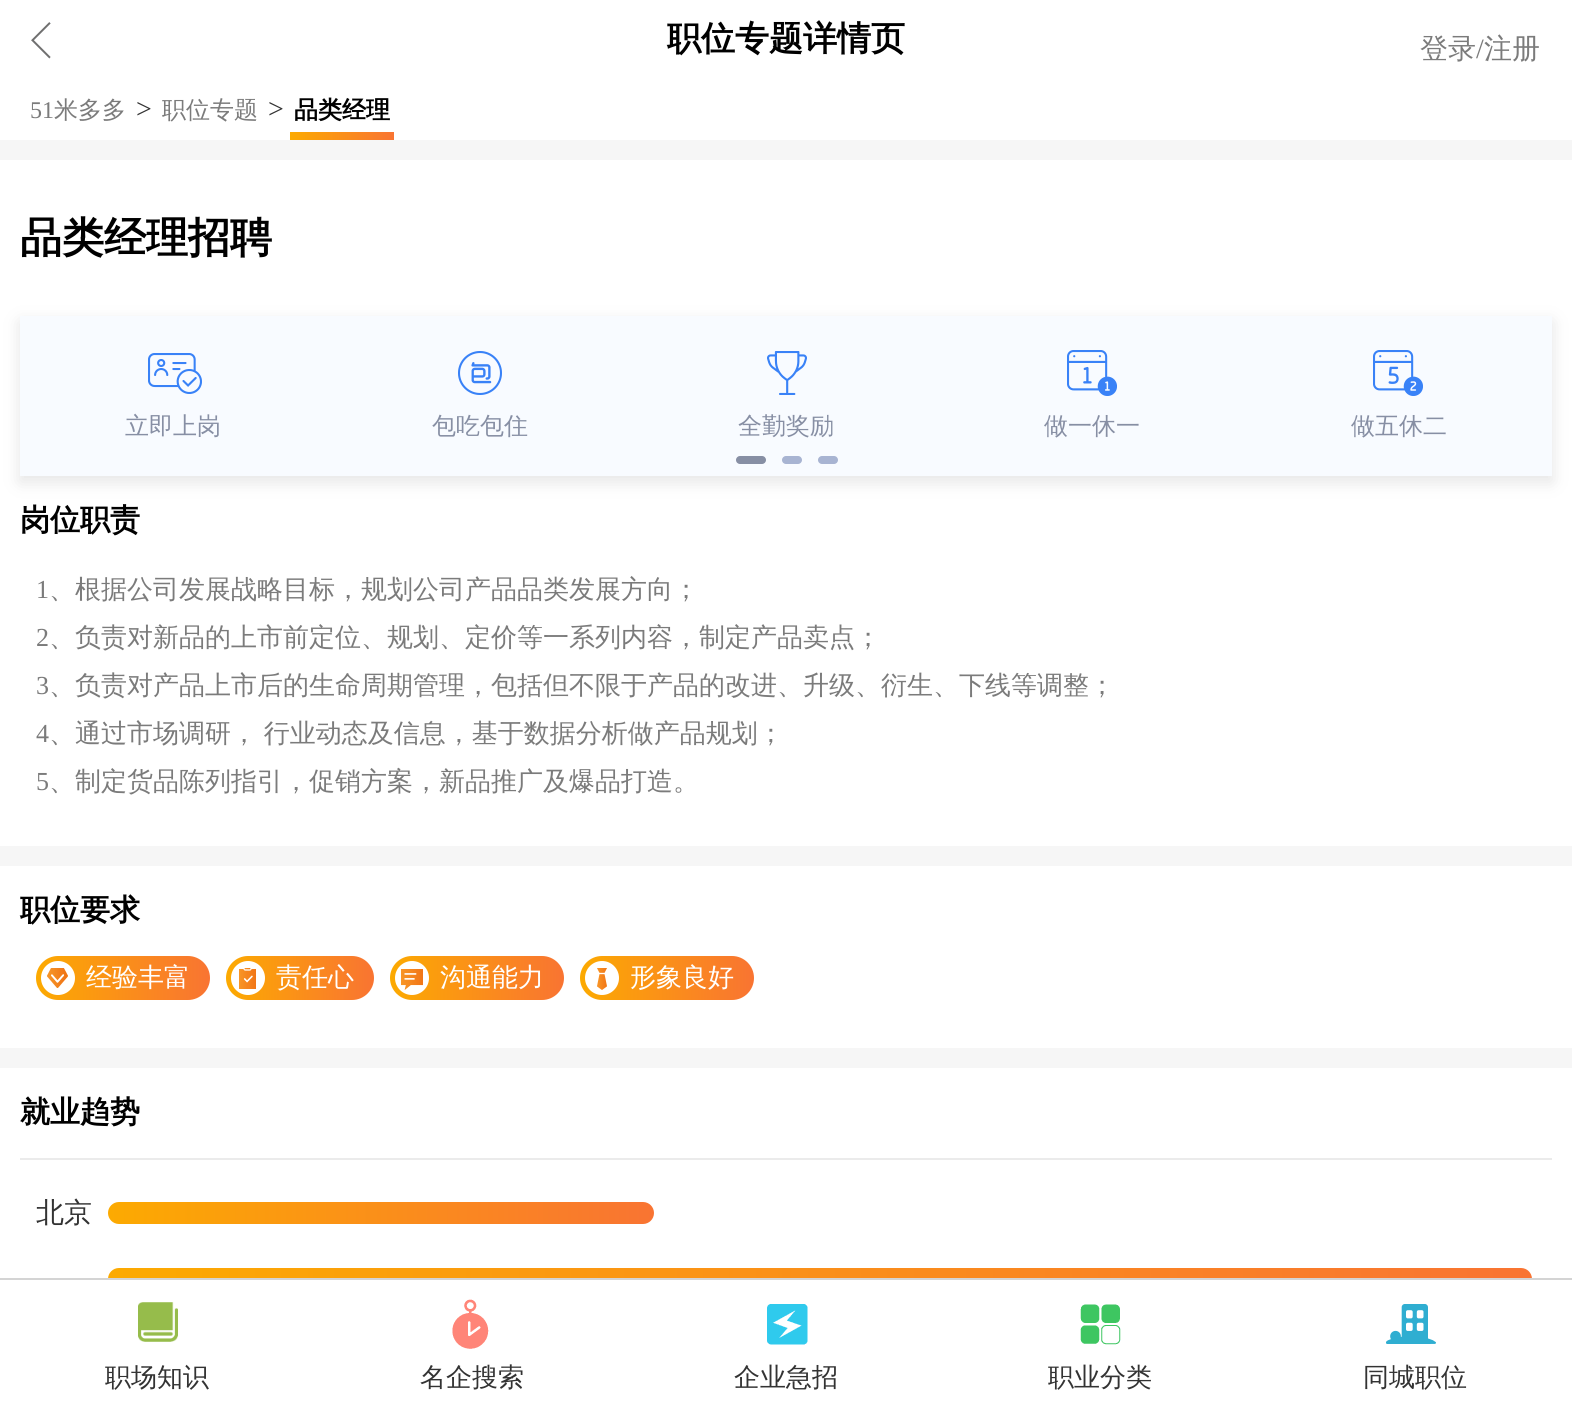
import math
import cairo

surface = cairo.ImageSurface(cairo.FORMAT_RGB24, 1572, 1413)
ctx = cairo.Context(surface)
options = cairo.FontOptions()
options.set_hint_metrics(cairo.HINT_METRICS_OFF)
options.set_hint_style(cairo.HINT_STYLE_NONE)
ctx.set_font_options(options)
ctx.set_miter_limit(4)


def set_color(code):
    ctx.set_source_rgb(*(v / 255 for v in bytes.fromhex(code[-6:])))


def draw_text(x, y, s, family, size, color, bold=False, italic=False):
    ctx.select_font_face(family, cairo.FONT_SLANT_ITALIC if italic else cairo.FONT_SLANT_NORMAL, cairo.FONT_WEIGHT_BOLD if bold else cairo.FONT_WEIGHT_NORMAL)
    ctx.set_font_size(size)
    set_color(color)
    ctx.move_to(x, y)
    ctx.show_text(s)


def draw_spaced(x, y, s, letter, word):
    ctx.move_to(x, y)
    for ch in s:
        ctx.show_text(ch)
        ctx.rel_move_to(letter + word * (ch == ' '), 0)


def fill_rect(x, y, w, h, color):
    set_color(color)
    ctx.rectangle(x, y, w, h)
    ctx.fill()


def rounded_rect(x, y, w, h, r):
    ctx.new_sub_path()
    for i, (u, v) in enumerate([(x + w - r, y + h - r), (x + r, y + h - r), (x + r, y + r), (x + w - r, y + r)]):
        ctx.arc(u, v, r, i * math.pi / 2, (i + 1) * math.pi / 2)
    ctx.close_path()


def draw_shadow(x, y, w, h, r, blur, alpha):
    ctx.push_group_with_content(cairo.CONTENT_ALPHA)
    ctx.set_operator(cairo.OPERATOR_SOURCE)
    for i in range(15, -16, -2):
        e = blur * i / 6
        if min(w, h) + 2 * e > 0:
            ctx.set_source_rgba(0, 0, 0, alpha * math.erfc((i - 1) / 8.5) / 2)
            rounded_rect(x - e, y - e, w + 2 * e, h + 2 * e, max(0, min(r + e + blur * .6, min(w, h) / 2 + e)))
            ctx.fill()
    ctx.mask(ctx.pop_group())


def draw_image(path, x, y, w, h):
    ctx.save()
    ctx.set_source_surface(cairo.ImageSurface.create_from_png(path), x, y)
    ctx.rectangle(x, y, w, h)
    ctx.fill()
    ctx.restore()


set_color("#ffffff")
ctx.paint()
draw_text(667, 50, "职位专题详情页", "WenQuanYi Zen Hei", 34, "#000000", bold=True)
draw_image("assets/img1.png", 31, 22, 20, 37)
draw_text(1420, 58, "登录", "WenQuanYi Zen Hei Medium", 28, "#7b7b7b")
draw_text(1476, 58, "/", "Liberation Serif", 28, "#7b7b7b")
draw_text(1484, 58, "注册", "WenQuanYi Zen Hei Medium", 28, "#7b7b7b")
draw_text(30, 118, "51", "Liberation Serif", 24, "#7b7b7b")
draw_text(54, 118, "米多多", "WenQuanYi Zen Hei Medium", 24, "#7b7b7b")
draw_text(136, 118, ">", "Liberation Serif", 28, "#333333")
draw_text(162, 118, "职位专题", "WenQuanYi Zen Hei Medium", 24, "#7b7b7b")
draw_text(268, 118, ">", "Liberation Serif", 28, "#333333")
draw_text(294, 118, "品类经理", "WenQuanYi Zen Hei", 24, "#000000", bold=True)
gradient = cairo.LinearGradient(290, 136, 394, 136)
gradient.add_color_stop_rgba(0, 0.988, 0.667, 0.004, 1)
gradient.add_color_stop_rgba(1, 0.976, 0.455, 0.196, 1)
ctx.set_source(gradient)
ctx.rectangle(290, 132, 104, 8)
ctx.fill()
fill_rect(0, 140, 1572, 20, "#f6f6f6")
draw_text(20, 252, "品类经理招聘", "WenQuanYi Zen Hei", 42, "#000000", bold=True)
set_color("#e5e5e5")
draw_shadow(20, 322, 1532, 160, 0, 8, 1)
fill_rect(20, 316, 1532, 160, "#f8fbff")
draw_image("assets/img2.png", 148, 353, 54, 41)
draw_text(125, 434, "立即上岗", "WenQuanYi Zen Hei Medium", 24, "#878fa4")
draw_image("assets/img3.png", 458, 351, 44, 44)
draw_text(432, 434, "包吃包住", "WenQuanYi Zen Hei Medium", 24, "#878fa4")
draw_image("assets/img4.png", 767, 351, 40, 44)
draw_text(738, 434, "全勤奖励", "WenQuanYi Zen Hei Medium", 24, "#878fa4")
draw_image("assets/img5.png", 1067, 350, 50, 46)
draw_text(1044, 434, "做一休一", "WenQuanYi Zen Hei Medium", 24, "#878fa4")
draw_image("assets/img6.png", 1373, 350, 50, 46)
draw_text(1351, 434, "做五休二", "WenQuanYi Zen Hei Medium", 24, "#878fa4")
rounded_rect(736, 456, 30, 8, 4)
ctx.fill()
set_color("#a8b4d2")
rounded_rect(782, 456, 20, 8, 4)
ctx.fill()
rounded_rect(818, 456, 20, 8, 4)
ctx.fill()
draw_text(20, 530, "岗位职责", "WenQuanYi Zen Hei", 30, "#000000", bold=True)
draw_text(36, 598, "1", "Liberation Serif", 26, "#7b7b7b")
draw_text(49, 598, "、根据公司发展战略目标，规划公司产品品类发展方向；", "WenQuanYi Zen Hei Medium", 26, "#7b7b7b")
draw_text(36, 646, "2", "Liberation Serif", 26, "#7b7b7b")
draw_text(49, 646, "、负责对新品的上市前定位、规划、定价等一系列内容，制定产品卖点；", "WenQuanYi Zen Hei Medium", 26, "#7b7b7b")
draw_text(36, 694, "3", "Liberation Serif", 26, "#7b7b7b")
draw_text(49, 694, "、负责对产品上市后的生命周期管理，包括但不限于产品的改进、升级、衍生、下线等调整；", "WenQuanYi Zen Hei Medium", 26, "#7b7b7b")
draw_text(36, 742, "4", "Liberation Serif", 26, "#7b7b7b")
ctx.select_font_face("WenQuanYi Zen Hei Medium")
draw_spaced(49, 742, "、通过市场调研， 行业动态及信息，基于数据分析做产品规划；", 0, -1)
draw_text(36, 790, "5", "Liberation Serif", 26, "#7b7b7b")
draw_text(49, 790, "、制定货品陈列指引，促销方案，新品推广及爆品打造。", "WenQuanYi Zen Hei Medium", 26, "#7b7b7b")
fill_rect(0, 846, 1572, 20, "#f6f6f6")
draw_text(20, 920, "职位要求", "WenQuanYi Zen Hei", 30, "#000000", bold=True)
gradient = cairo.LinearGradient(36, 978, 210, 978)
gradient.add_color_stop_rgba(0, 0.988, 0.667, 0.004, 1)
gradient.add_color_stop_rgba(1, 0.976, 0.455, 0.196, 1)
ctx.set_source(gradient)
rounded_rect(36, 956, 174, 44, 22)
ctx.fill()
draw_image("assets/img7.png", 41, 961, 34, 34)
draw_text(86, 986, "经验丰富", "WenQuanYi Zen Hei Medium", 26, "#ffffff")
gradient = cairo.LinearGradient(226, 978, 374, 978)
gradient.add_color_stop_rgba(0, 0.988, 0.667, 0.004, 1)
gradient.add_color_stop_rgba(1, 0.976, 0.455, 0.196, 1)
ctx.set_source(gradient)
rounded_rect(226, 956, 148, 44, 22)
ctx.fill()
draw_image("assets/img8.png", 231, 961, 34, 34)
draw_text(276, 986, "责任心", "WenQuanYi Zen Hei Medium", 26, "#ffffff")
gradient = cairo.LinearGradient(390, 978, 564, 978)
gradient.add_color_stop_rgba(0, 0.988, 0.667, 0.004, 1)
gradient.add_color_stop_rgba(1, 0.976, 0.455, 0.196, 1)
ctx.set_source(gradient)
rounded_rect(390, 956, 174, 44, 22)
ctx.fill()
draw_image("assets/img9.png", 395, 961, 34, 34)
draw_text(440, 986, "沟通能力", "WenQuanYi Zen Hei Medium", 26, "#ffffff")
gradient = cairo.LinearGradient(580, 978, 754, 978)
gradient.add_color_stop_rgba(0, 0.988, 0.667, 0.004, 1)
gradient.add_color_stop_rgba(1, 0.976, 0.455, 0.196, 1)
ctx.set_source(gradient)
rounded_rect(580, 956, 174, 44, 22)
ctx.fill()
draw_image("assets/img10.png", 585, 961, 34, 34)
draw_text(630, 986, "形象良好", "WenQuanYi Zen Hei Medium", 26, "#ffffff")
fill_rect(0, 1048, 1572, 20, "#f6f6f6")
draw_text(20, 1122, "就业趋势", "WenQuanYi Zen Hei", 30, "#000000", bold=True)
fill_rect(20, 1158, 1532, 2, "#ebebeb")
draw_text(36, 1222, "北京", "WenQuanYi Zen Hei Medium", 28, "#333333")
gradient = cairo.LinearGradient(108, 1213, 654, 1213)
gradient.add_color_stop_rgba(0, 0.988, 0.667, 0.004, 1)
gradient.add_color_stop_rgba(1, 0.976, 0.455, 0.196, 1)
ctx.set_source(gradient)
rounded_rect(108, 1202, 546, 22, 11)
ctx.fill()
gradient = cairo.LinearGradient(108, 1279, 1532, 1279)
gradient.add_color_stop_rgba(0, 0.988, 0.667, 0.004, 1)
gradient.add_color_stop_rgba(1, 0.976, 0.455, 0.196, 1)
ctx.set_source(gradient)
rounded_rect(108, 1268, 1424, 22, 11)
ctx.fill()
fill_rect(0, 1278, 1572, 2, "#d4d4d4")
fill_rect(108, 1280, 1424, 10, "#ffffff")
draw_image("assets/img11.png", 138, 1302, 40, 40)
draw_text(105, 1386, "职场知识", "WenQuanYi Zen Hei Medium", 26, "#333333")
draw_image("assets/img12.png", 452, 1299, 37, 50)
draw_text(420, 1386, "名企搜索", "WenQuanYi Zen Hei Medium", 26, "#333333")
draw_image("assets/img13.png", 767, 1304, 41, 41)
draw_text(734, 1386, "企业急招", "WenQuanYi Zen Hei Medium", 26, "#333333")
draw_image("assets/img14.png", 1080, 1304, 41, 41)
draw_text(1048, 1386, "职业分类", "WenQuanYi Zen Hei Medium", 26, "#333333")
draw_image("assets/img15.png", 1386, 1304, 50, 40)
draw_text(1363, 1386, "同城职位", "WenQuanYi Zen Hei Medium", 26, "#333333")
surface.write_to_png("output.png")
